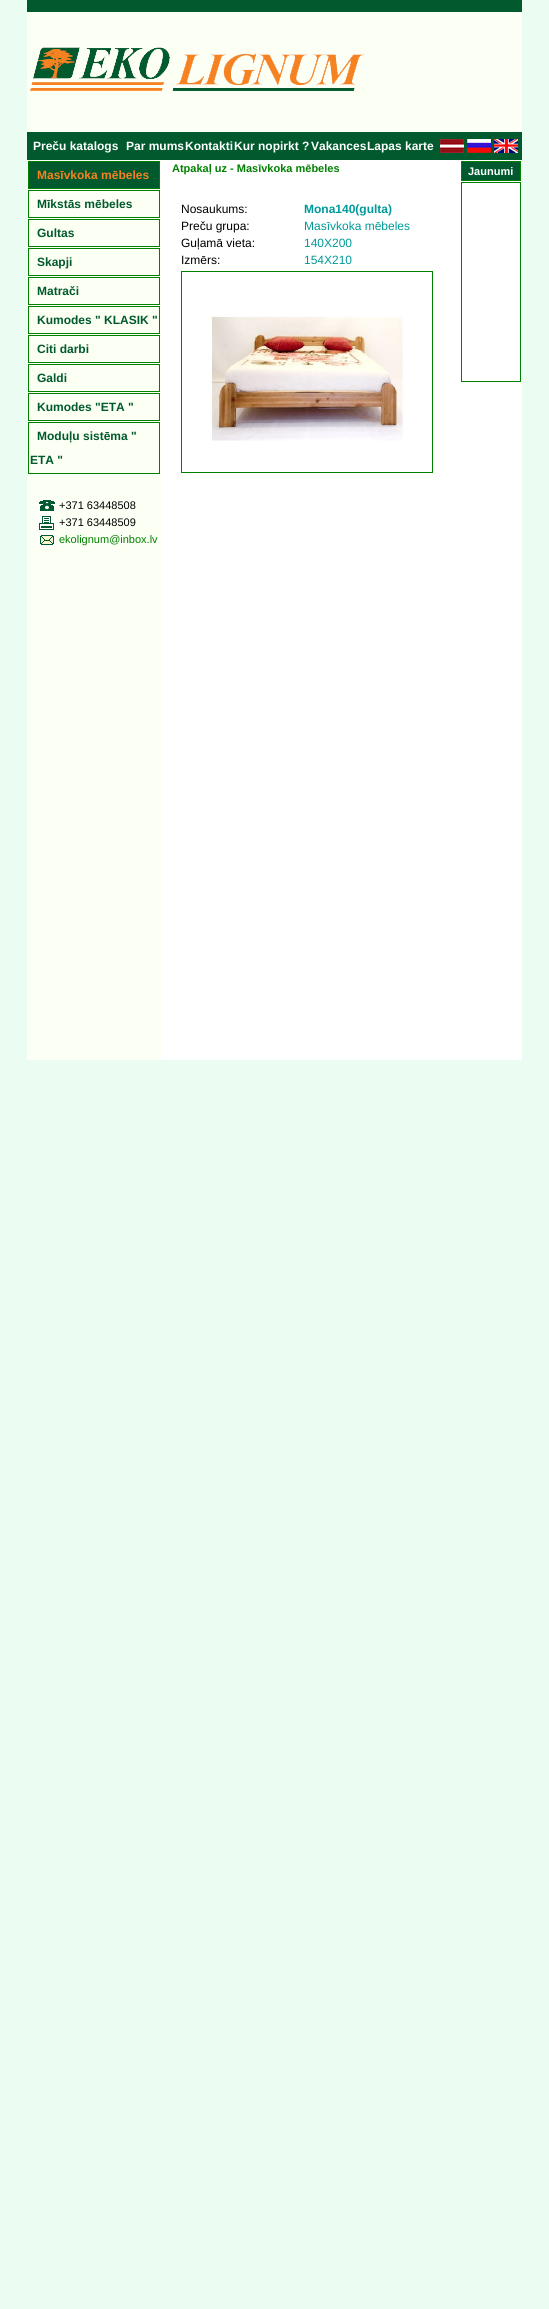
import math
import cairo

surface = cairo.ImageSurface(cairo.FORMAT_RGB24, 549, 2309)
ctx = cairo.Context(surface)
options = cairo.FontOptions()
options.set_hint_metrics(cairo.HINT_METRICS_OFF)
options.set_hint_style(cairo.HINT_STYLE_NONE)
ctx.set_font_options(options)
ctx.set_miter_limit(4)


def set_color(code):
    ctx.set_source_rgb(*(v / 255 for v in bytes.fromhex(code[-6:])))


def draw_text(x, y, s, family, size, color, bold=False, italic=False):
    ctx.select_font_face(family, cairo.FONT_SLANT_ITALIC if italic else cairo.FONT_SLANT_NORMAL, cairo.FONT_WEIGHT_BOLD if bold else cairo.FONT_WEIGHT_NORMAL)
    ctx.set_font_size(size)
    set_color(color)
    ctx.move_to(x, y)
    ctx.show_text(s)


def fill_rect(x, y, w, h, color):
    set_color(color)
    ctx.rectangle(x, y, w, h)
    ctx.fill()


def draw_image(path, x, y, w, h):
    ctx.save()
    ctx.set_source_surface(cairo.ImageSurface.create_from_png(path), x, y)
    ctx.rectangle(x, y, w, h)
    ctx.fill()
    ctx.restore()


set_color("#ebfcf2")
ctx.paint()
fill_rect(161, 160, 361, 900, "#ffffff")
fill_rect(27, 0, 495, 12, "#005a2d")
fill_rect(27, 12, 495, 120, "#fcfff4")
draw_image("assets/img1.png", 30, 47, 334, 44)
fill_rect(27, 132, 495, 28, "#005a2d")
draw_text(33, 150, "Preču katalogs", "Liberation Sans", 12, "#ffffff", bold=True)
draw_text(126, 150, "Par mums", "Liberation Sans", 12, "#ffffff", bold=True)
draw_text(185, 150, "Kontakti", "Liberation Sans", 12, "#ffffff", bold=True)
draw_text(234, 150, "Kur nopirkt ?", "Liberation Sans", 12, "#ffffff", bold=True)
draw_text(311, 150, "Vakances", "Liberation Sans", 12, "#ffffff", bold=True)
draw_text(367, 150, "Lapas karte", "Liberation Sans", 12, "#ffffff", bold=True)
draw_image("assets/img2.png", 440, 139, 24, 14)
draw_image("assets/img3.png", 467, 139, 24, 14)
draw_image("assets/img4.png", 494, 139, 24, 14)
fill_rect(27, 160, 134, 900, "#fcfff4")
set_color("#005a2d")
ctx.rectangle(28.5, 161.5, 131, 27)
ctx.fill_preserve()
set_color("#008000")
ctx.set_line_width(1)
ctx.stroke()
draw_text(37, 179, "Masīvkoka mēbeles", "Liberation Sans", 12, "#f58221", bold=True)
ctx.rectangle(28.5, 190.5, 131, 27)
set_color("#008000")
ctx.stroke()
draw_text(37, 208, "Mīkstās mēbeles", "Liberation Sans", 12, "#005a2d", bold=True)
ctx.rectangle(28.5, 219.5, 131, 27)
set_color("#008000")
ctx.stroke()
draw_text(37, 237, "Gultas", "Liberation Sans", 12, "#005a2d", bold=True)
ctx.rectangle(28.5, 248.5, 131, 27)
set_color("#008000")
ctx.stroke()
draw_text(37, 266, "Skapji", "Liberation Sans", 12, "#005a2d", bold=True)
ctx.rectangle(28.5, 277.5, 131, 27)
set_color("#008000")
ctx.stroke()
draw_text(37, 295, "Matrači", "Liberation Sans", 12, "#005a2d", bold=True)
ctx.rectangle(28.5, 306.5, 131, 27)
set_color("#008000")
ctx.stroke()
draw_text(37, 324, "Kumodes \" KLASIK \"", "Liberation Sans", 12, "#005a2d", bold=True)
ctx.rectangle(28.5, 335.5, 131, 27)
set_color("#008000")
ctx.stroke()
draw_text(37, 353, "Citi darbi", "Liberation Sans", 12, "#005a2d", bold=True)
ctx.rectangle(28.5, 364.5, 131, 27)
set_color("#008000")
ctx.stroke()
draw_text(37, 382, "Galdi", "Liberation Sans", 12, "#005a2d", bold=True)
ctx.rectangle(28.5, 393.5, 131, 27)
set_color("#008000")
ctx.stroke()
draw_text(37, 411, "Kumodes \"ETA \"", "Liberation Sans", 12, "#005a2d", bold=True)
ctx.rectangle(28.5, 422.5, 131, 51)
set_color("#008000")
ctx.stroke()
draw_text(37, 440, "Moduļu sistēma \"", "Liberation Sans", 12, "#005a2d", bold=True)
draw_text(30, 464, "ETA \"", "Liberation Sans", 12, "#005a2d", bold=True)
draw_image("assets/img5.png", 38, 499, 18, 14)
draw_text(59, 509, "+371 63448508", "Liberation Sans", 11, "#000000")
draw_image("assets/img6.png", 38, 516, 18, 14)
draw_text(59, 526, "+371 63448509", "Liberation Sans", 11, "#000000")
draw_image("assets/img7.png", 38, 533, 18, 14)
draw_text(59, 543, "ekolignum@inbox.lv", "Liberation Sans", 11, "#008000")
draw_text(172, 172, "Atpakaļ uz - Masīvkoka mēbeles", "Liberation Sans", 11, "#008000", bold=True)
draw_text(181, 213, "Nosaukums:", "Liberation Sans", 12, "#000000")
draw_text(304, 213, "Mona140(gulta)", "Liberation Sans", 12, "#009999", bold=True)
draw_text(181, 230, "Preču grupa:", "Liberation Sans", 12, "#000000")
draw_text(304, 230, "Masīvkoka mēbeles", "Liberation Sans", 12, "#009999")
draw_text(181, 247, "Guļamā vieta:", "Liberation Sans", 12, "#000000")
draw_text(304, 247, "140X200", "Liberation Sans", 12, "#009999")
draw_text(181, 264, "Izmērs:", "Liberation Sans", 12, "#000000")
draw_text(304, 264, "154X210", "Liberation Sans", 12, "#009999")
ctx.rectangle(181.5, 271.5, 251, 201)
set_color("#008000")
ctx.stroke()
draw_image("assets/img8.png", 210, 316, 194, 125)
set_color("#005a2d")
ctx.rectangle(461.5, 161.5, 59, 19)
ctx.fill_preserve()
set_color("#008000")
ctx.stroke()
draw_text(468, 175, "Jaunumi", "Liberation Sans", 11, "#ffffff", bold=True)
ctx.rectangle(461.5, 182.5, 59, 199)
set_color("#008000")
ctx.stroke()
surface.write_to_png("output.png")
